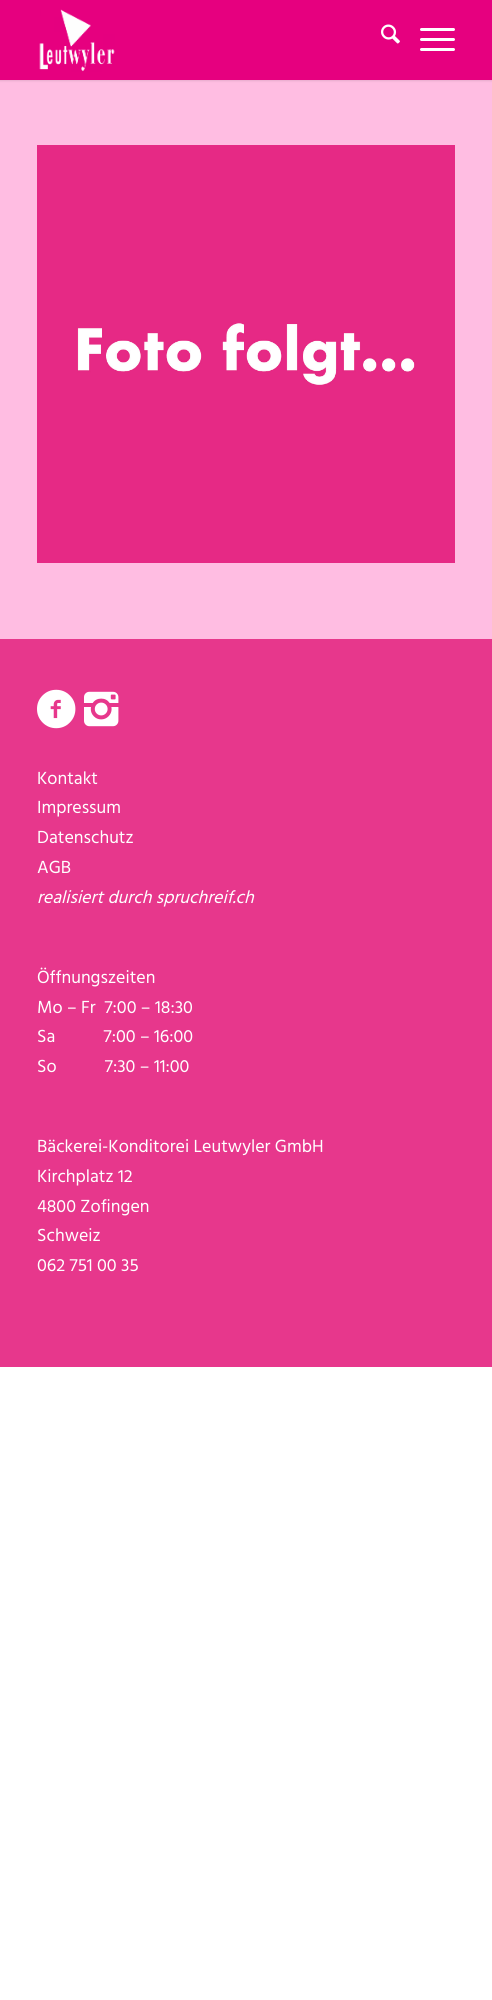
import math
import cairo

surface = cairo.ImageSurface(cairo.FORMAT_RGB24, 492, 2000)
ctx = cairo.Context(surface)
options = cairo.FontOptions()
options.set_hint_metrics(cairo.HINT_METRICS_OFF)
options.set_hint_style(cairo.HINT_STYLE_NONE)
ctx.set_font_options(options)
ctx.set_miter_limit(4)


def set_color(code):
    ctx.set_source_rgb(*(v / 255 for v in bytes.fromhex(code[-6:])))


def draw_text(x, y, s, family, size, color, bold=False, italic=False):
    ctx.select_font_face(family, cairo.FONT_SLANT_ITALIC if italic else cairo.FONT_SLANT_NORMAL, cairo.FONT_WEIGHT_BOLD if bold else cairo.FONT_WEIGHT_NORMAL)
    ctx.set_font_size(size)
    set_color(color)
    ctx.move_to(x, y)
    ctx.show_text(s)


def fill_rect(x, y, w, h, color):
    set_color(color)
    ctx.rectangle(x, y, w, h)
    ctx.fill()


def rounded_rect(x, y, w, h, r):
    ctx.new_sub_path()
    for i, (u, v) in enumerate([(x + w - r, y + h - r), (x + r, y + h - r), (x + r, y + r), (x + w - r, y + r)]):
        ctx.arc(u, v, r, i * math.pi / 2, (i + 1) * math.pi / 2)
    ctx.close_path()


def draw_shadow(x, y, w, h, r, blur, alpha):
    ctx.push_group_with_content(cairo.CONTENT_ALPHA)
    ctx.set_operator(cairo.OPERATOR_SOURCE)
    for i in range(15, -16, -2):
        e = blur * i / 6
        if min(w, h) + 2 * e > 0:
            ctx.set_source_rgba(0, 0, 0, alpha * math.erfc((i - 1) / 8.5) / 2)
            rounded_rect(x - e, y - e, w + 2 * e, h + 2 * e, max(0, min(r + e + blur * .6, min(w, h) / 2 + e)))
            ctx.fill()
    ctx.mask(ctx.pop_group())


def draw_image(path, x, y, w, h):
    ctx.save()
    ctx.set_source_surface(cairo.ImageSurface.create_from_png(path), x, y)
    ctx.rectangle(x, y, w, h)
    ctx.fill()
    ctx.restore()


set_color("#ffffff")
ctx.paint()
fill_rect(0, 80, 492, 559, "#ffbde2")
set_color("#000000")
draw_shadow(-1, -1, 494, 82, 0, 1, 0.1)
fill_rect(0, 0, 492, 80, "#e6007f")
draw_image("assets/img1.png", 39, 9, 76, 63)
draw_image("assets/img2.png", 381, 24, 19, 20)
set_color("#ffffff")
rounded_rect(420, 38, 35, 3, 1.5)
ctx.fill()
rounded_rect(420, 28, 35, 3, 1.5)
ctx.fill()
rounded_rect(420, 48, 35, 3, 1.5)
ctx.fill()
draw_image("assets/img3.png", 37, 145, 418, 418)
fill_rect(0, 639, 492, 728, "#e7378c")
draw_image("assets/img4.png", 37, 689, 39, 40)
draw_image("assets/img5.png", 84, 691, 35, 36)
draw_text(37, 784, "Kontakt", "Hind", 18, "#ffffff")
draw_text(37, 813, "Impressum", "Hind", 18, "#ffffff")
draw_text(37, 843, "Datenschutz", "Hind", 18, "#ffffff")
draw_text(37, 873, "AGB", "Hind", 18, "#ffffff")
draw_text(37, 903, "realisiert durch spruchreif.ch", "Hind", 18, "#ffffff", italic=True)
draw_text(37, 983, "Öffnungszeiten", "Hind", 18, "#ffffff")
draw_text(37, 1013, "Mo – Fr  7:00 – 18:30", "Hind", 18, "#ffffff")
draw_text(37, 1042, "Sa           7:00 – 16:00", "Hind", 18, "#ffffff")
draw_text(37, 1072, "So           7:30 – 11:00", "Hind", 18, "#ffffff")
draw_text(37, 1152, "Bäckerei-Konditorei Leutwyler GmbH", "Hind", 18, "#ffffff")
draw_text(37, 1182, "Kirchplatz 12", "Hind", 18, "#ffffff")
draw_text(37, 1212, "4800 Zofingen", "Hind", 18, "#ffffff")
draw_text(37, 1241, "Schweiz", "Hind", 18, "#ffffff")
draw_text(37, 1271, "062 751 00 35", "Hind", 18, "#ffffff")
surface.write_to_png("output.png")
